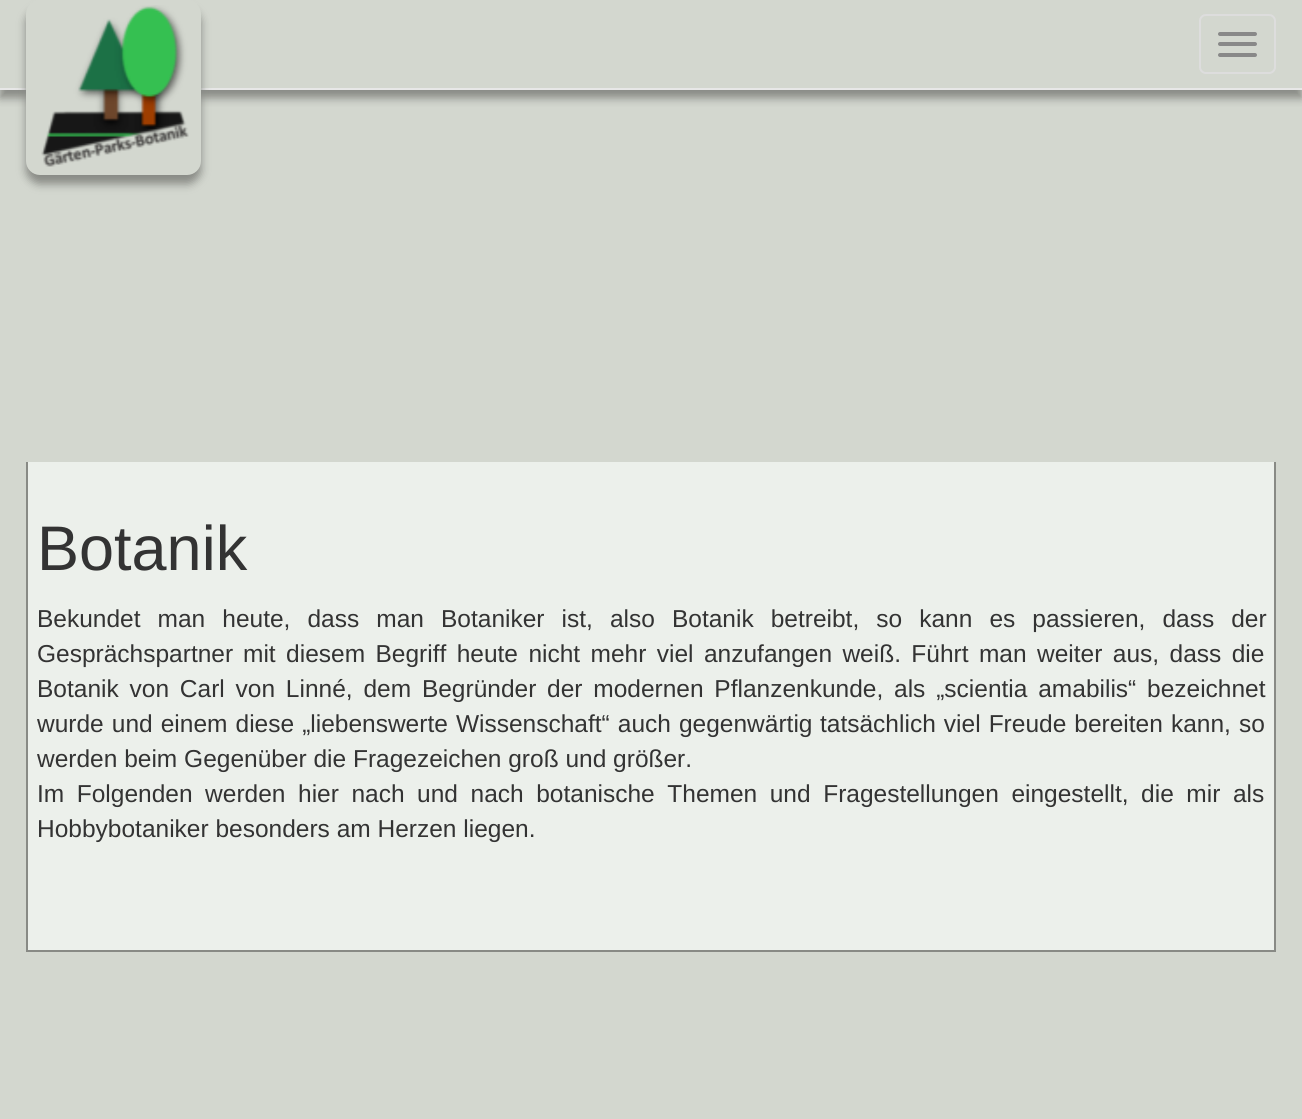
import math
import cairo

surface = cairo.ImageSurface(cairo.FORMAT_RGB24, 1302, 1119)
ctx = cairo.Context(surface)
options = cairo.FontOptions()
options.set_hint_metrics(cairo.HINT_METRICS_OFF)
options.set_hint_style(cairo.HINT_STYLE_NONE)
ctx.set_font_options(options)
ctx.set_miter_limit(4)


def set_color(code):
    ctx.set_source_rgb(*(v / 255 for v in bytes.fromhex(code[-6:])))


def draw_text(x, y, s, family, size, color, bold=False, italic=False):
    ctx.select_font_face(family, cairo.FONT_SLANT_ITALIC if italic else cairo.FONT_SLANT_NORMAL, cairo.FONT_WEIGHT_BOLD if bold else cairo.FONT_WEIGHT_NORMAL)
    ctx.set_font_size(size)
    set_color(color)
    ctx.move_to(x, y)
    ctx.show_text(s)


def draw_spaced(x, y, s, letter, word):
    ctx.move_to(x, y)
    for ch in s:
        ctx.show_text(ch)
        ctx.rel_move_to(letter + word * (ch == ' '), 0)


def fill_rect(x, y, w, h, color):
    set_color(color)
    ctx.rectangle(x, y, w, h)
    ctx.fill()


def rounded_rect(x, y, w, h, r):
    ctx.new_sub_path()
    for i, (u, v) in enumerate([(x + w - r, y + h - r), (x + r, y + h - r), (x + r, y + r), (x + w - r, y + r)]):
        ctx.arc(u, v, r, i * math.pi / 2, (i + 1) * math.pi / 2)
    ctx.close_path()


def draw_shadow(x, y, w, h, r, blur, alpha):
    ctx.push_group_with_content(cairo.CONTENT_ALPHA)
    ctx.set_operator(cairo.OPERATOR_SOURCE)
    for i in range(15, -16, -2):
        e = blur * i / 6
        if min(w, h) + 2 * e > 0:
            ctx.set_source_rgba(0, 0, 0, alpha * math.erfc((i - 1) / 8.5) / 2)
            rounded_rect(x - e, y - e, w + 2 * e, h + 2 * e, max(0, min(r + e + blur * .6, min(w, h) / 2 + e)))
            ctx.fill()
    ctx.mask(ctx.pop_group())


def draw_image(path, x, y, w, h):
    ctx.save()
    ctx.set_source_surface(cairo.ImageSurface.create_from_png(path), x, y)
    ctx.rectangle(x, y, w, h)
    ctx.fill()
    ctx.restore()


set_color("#d3d7cf")
ctx.paint()
ctx.save()
ctx.rectangle(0, 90, 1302, 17)
ctx.clip()
set_color("#888a85")
draw_shadow(0, 9, 1302, 89, 0, 4.5, 1)
ctx.restore()
fill_rect(0, 88, 1302, 2, "#e7e7e7")
set_color("#888a85")
draw_shadow(26, 9, 175, 175, 14, 4.5, 1)
set_color("#d3d7cf")
rounded_rect(26, 0, 175, 175, 14)
ctx.fill()
draw_image("assets/img1.png", 41, 5, 148, 162)
rounded_rect(1200, 15, 75, 58, 6)
set_color("#dddddd")
ctx.stroke()
set_color("#888888")
rounded_rect(1218, 32, 39, 4, 2)
ctx.fill()
rounded_rect(1218, 42, 39, 4, 2)
ctx.fill()
rounded_rect(1218, 53, 39, 4, 2)
ctx.fill()
fill_rect(28, 462, 1246, 488, "#ecf0eb")
fill_rect(1274, 462, 2, 490, "#888a85")
fill_rect(26, 950, 1250, 2, "#888a85")
fill_rect(26, 462, 2, 490, "#888a85")
draw_text(37, 570, "Botanik", "Liberation Sans", 63, "#333333")
ctx.set_font_size(24.5)
draw_spaced(37, 627, "Bekundet man heute, dass man Botaniker ist, also Botanik betreibt, so kann es passieren, dass der", 0, 10.25)
draw_text(37, 662, "Gesprächspartner", "Liberation Sans", 24.5, "#333333")
draw_spaced(243, 662, "mit diesem Begriff heute nicht mehr viel anzufangen weiß. Führt man weiter aus, dass die", 0, 3.6)
draw_spaced(37, 697, "Botanik von Carl von Linné, dem Begründer", 0, 4)
draw_spaced(547, 697, "der modernen Pflanzenkunde, als „scientia amabilis“ bezeichnet", 0, 4)
draw_spaced(37, 732, "wurde und einem diese „liebenswerte Wissenschaft“ auch gegenwärtig", 0, 1.25)
draw_spaced(820, 732, "tatsächlich viel Freude bereiten kann, so", 0, 1.25)
draw_text(37, 767, "werden beim Gegenüber die Fragezeichen groß und größer.", "Liberation Sans", 24.5, "#333333")
draw_spaced(37, 802, "Im Folgenden werden hier nach und nach botanische Themen und Fragestellungen eingestellt, die mir als", 0, 5.75)
draw_text(37, 837, "Hobbybotaniker besonders am Herzen liegen.", "Liberation Sans", 24.5, "#333333")
surface.write_to_png("output.png")
